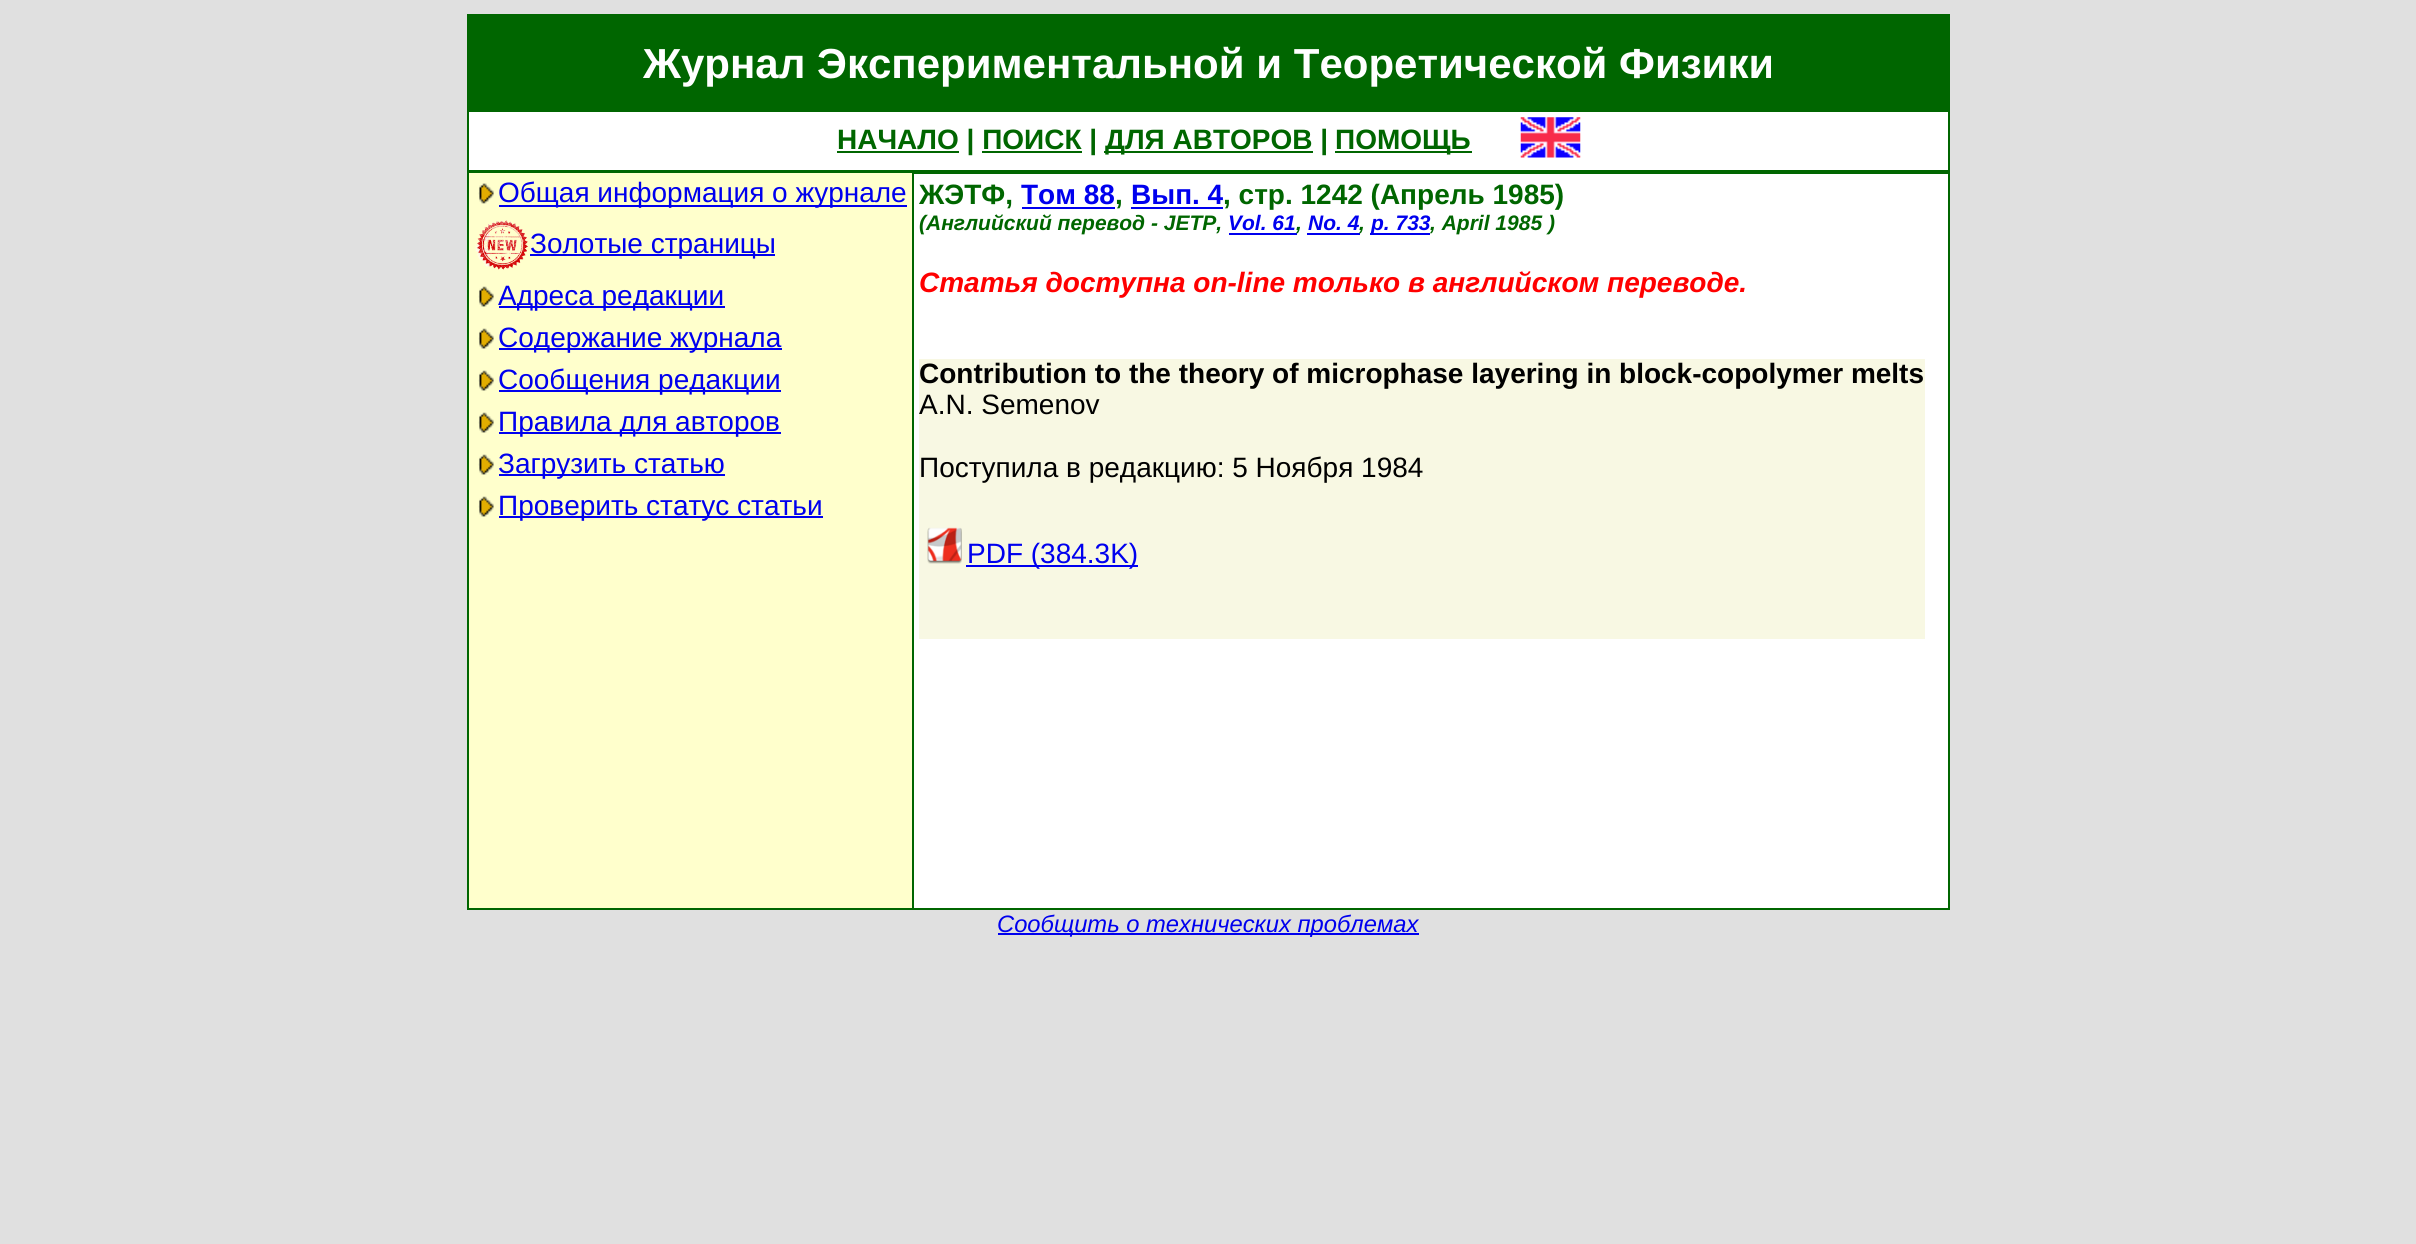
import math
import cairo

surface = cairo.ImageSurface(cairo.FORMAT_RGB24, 2416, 1244)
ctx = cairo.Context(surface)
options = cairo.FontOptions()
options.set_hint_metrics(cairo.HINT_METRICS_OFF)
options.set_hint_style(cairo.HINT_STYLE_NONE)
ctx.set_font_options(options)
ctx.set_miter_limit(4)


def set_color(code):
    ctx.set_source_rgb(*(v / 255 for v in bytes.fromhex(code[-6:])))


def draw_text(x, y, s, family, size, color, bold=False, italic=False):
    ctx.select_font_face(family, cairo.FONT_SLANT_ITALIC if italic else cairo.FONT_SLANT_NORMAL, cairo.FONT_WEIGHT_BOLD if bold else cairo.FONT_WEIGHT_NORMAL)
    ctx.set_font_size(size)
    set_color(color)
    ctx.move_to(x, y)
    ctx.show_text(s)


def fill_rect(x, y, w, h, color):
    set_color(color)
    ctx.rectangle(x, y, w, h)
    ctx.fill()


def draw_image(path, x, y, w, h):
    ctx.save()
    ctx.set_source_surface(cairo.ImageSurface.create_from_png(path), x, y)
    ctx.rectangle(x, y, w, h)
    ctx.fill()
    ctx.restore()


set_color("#e0e0e0")
ctx.paint()
fill_rect(467, 14, 1483, 896, "#006600")
fill_rect(469, 112, 1479, 796, "#ffffff")
draw_text(643, 78, "Журнал Экспериментальной и Теоретической Физики", "Liberation Sans", 42, "#ffffff", bold=True)
fill_rect(837, 151, 122, 2, "#006600")
draw_text(837, 149, "НАЧАЛО | ПОИСК |", "Liberation Sans", 28, "#006600", bold=True)
fill_rect(1104, 151, 209, 2, "#006600")
draw_text(1105, 149, "ДЛЯ АВТОРОВ |", "Liberation Sans", 28, "#006600", bold=True)
fill_rect(1335, 151, 137, 2, "#006600")
draw_text(1335, 149, "ПОМОЩЬ", "Liberation Sans", 28, "#006600", bold=True)
fill_rect(982, 151, 100, 2, "#006600")
draw_image("assets/img1.png", 1520, 117, 61, 41)
fill_rect(469, 170, 1479, 4, "#006600")
fill_rect(469, 173, 443, 735, "#ffffcc")
draw_image("assets/img2.png", 478, 183, 16, 21)
fill_rect(499, 205, 408, 2, "#0000ee")
draw_text(498, 202, "Общая информация о журнале", "Liberation Sans", 28, "#0000ee")
draw_image("assets/img3.png", 474, 220, 54, 50)
fill_rect(530, 254, 245, 2, "#0000ee")
draw_text(530, 253, "Золотые страницы", "Liberation Sans", 28, "#0000ee")
draw_image("assets/img4.png", 478, 286, 16, 21)
fill_rect(499, 306, 226, 2, "#0000ee")
draw_text(498, 305, "Адреса редакции", "Liberation Sans", 28, "#0000ee")
draw_image("assets/img4.png", 478, 328, 16, 21)
fill_rect(499, 348, 283, 2, "#0000ee")
draw_text(498, 347, "Содержание журнала", "Liberation Sans", 28, "#0000ee")
draw_image("assets/img4.png", 478, 370, 16, 21)
fill_rect(499, 390, 282, 2, "#0000ee")
draw_text(498, 389, "Сообщения редакции", "Liberation Sans", 28, "#0000ee")
draw_image("assets/img4.png", 478, 412, 16, 21)
fill_rect(499, 432, 282, 2, "#0000ee")
draw_text(498, 431, "Правила для авторов", "Liberation Sans", 28, "#0000ee")
draw_image("assets/img4.png", 478, 454, 16, 21)
fill_rect(499, 474, 226, 2, "#0000ee")
draw_text(498, 473, "Загрузить статью", "Liberation Sans", 28, "#0000ee")
draw_image("assets/img4.png", 478, 496, 16, 21)
fill_rect(499, 516, 324, 2, "#0000ee")
draw_text(498, 515, "Проверить статус статьи", "Liberation Sans", 28, "#0000ee")
fill_rect(912, 173, 2, 735, "#006600")
draw_text(919, 204, "ЖЭТФ,", "Liberation Sans", 28, "#006600", bold=True)
draw_text(1021, 204, "Том 88", "Liberation Sans", 28, "#0000ee", bold=True)
draw_text(1115, 204, ",", "Liberation Sans", 28, "#006600", bold=True)
fill_rect(1022, 207, 93, 2, "#0000ee")
fill_rect(1131, 207, 92, 2, "#0000ee")
draw_text(1131, 204, "Вып. 4", "Liberation Sans", 28, "#0000ee", bold=True)
draw_text(1223, 204, ", стр. 1242 (Апрель 1985)", "Liberation Sans", 28, "#006600", bold=True)
draw_text(919, 230, "(Английский перевод - JETP,", "Liberation Sans", 21, "#006600", bold=True, italic=True)
draw_text(1228, 230, "Vol. 61", "Liberation Sans", 21, "#0000ee", bold=True, italic=True)
fill_rect(1229, 233, 68, 2, "#0000ee")
draw_text(1296, 230, ",", "Liberation Sans", 21, "#006600", bold=True, italic=True)
draw_text(1308, 230, "No. 4", "Liberation Sans", 21, "#0000ee", bold=True, italic=True)
fill_rect(1307, 233, 53, 2, "#0000ee")
draw_text(1359, 230, ",", "Liberation Sans", 21, "#006600", bold=True, italic=True)
fill_rect(1370, 233, 60, 2, "#0000ee")
draw_text(1371, 230, "p. 733", "Liberation Sans", 21, "#0000ee", bold=True, italic=True)
draw_text(1430, 230, ", April 1985 )", "Liberation Sans", 21, "#006600", bold=True, italic=True)
draw_text(919, 292, "Статья доступна on-line только в английском переводе.", "Liberation Sans", 28, "#ff0000", bold=True, italic=True)
fill_rect(919, 359, 1006, 280, "#f8f8e3")
draw_text(919, 383, "Contribution to the theory of microphase layering in block-copolymer melts", "Liberation Sans", 28, "#000000", bold=True)
draw_text(919, 414, "A.N. Semenov", "Liberation Sans", 28, "#000000")
draw_text(919, 477, "Поступила в редакцию: 5 Ноября 1984", "Liberation Sans", 28, "#000000")
draw_image("assets/img5.png", 927, 527, 35, 37)
fill_rect(966, 565, 172, 2, "#0000ee")
draw_text(967, 563, "PDF (384.3K)", "Liberation Sans", 28, "#0000ee")
fill_rect(998, 933, 421, 2, "#0000ee")
draw_text(997, 932, "Сообщить о технических проблемах", "Liberation Sans", 23.75, "#0000ee", italic=True)
surface.write_to_png("output.png")
